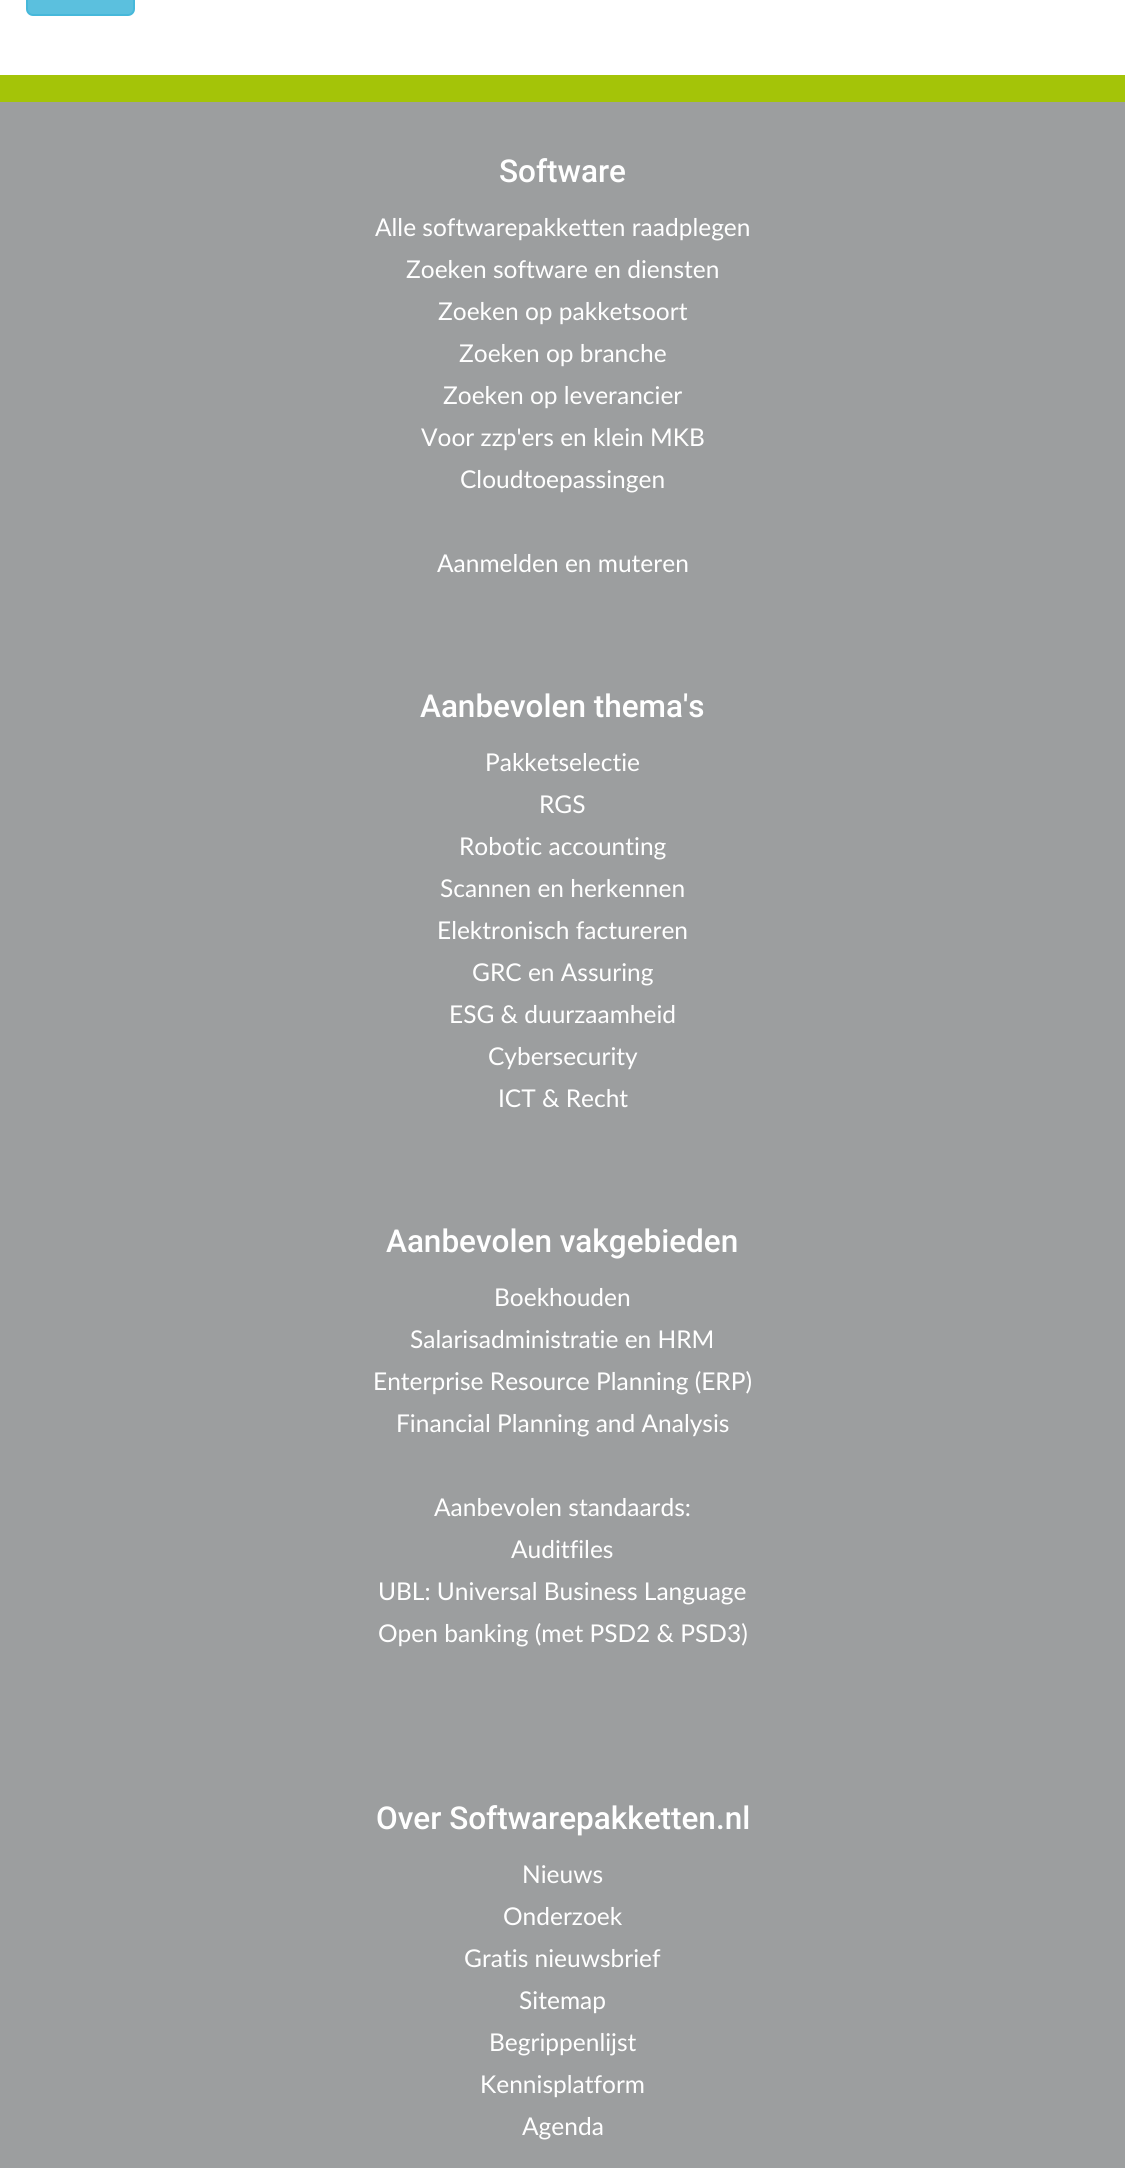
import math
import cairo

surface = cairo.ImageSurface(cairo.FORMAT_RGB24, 1125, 2168)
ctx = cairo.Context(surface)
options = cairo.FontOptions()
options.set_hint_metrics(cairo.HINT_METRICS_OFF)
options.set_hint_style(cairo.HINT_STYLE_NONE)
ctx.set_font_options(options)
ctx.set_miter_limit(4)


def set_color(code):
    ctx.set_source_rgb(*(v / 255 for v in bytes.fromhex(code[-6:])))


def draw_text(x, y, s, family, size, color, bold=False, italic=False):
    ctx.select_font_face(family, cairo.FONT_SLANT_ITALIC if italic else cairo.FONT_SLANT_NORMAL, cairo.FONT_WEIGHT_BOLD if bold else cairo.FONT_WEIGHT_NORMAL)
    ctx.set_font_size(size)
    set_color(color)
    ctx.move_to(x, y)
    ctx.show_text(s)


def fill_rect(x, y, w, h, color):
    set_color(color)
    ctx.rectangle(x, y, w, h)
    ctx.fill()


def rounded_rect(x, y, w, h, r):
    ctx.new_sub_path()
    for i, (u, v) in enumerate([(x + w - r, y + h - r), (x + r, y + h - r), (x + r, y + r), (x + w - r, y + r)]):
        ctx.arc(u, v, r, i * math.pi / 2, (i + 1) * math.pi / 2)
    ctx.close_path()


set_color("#ffffff")
ctx.paint()
set_color("#5bc0de")
rounded_rect(27, -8, 107, 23, 6)
ctx.fill_preserve()
set_color("#46b8da")
ctx.stroke()
fill_rect(0, 102, 1125, 2066, "#9c9e9f")
fill_rect(0, 75, 1125, 27, "#a4c408")
draw_text(499, 182, "Software", "Roboto Medium", 31.5, "#ffffff")
draw_text(375, 236, "Alle softwarepakketten raadplegen", "Lato", 24.5, "#ffffff")
draw_text(406, 278, "Zoeken software en diensten", "Lato", 24.5, "#ffffff")
draw_text(438, 320, "Zoeken op pakketsoort", "Lato", 24.5, "#ffffff")
draw_text(459, 362, "Zoeken op branche", "Lato", 24.5, "#ffffff")
draw_text(443, 404, "Zoeken op leverancier", "Lato", 24.5, "#ffffff")
draw_text(421, 446, "Voor zzp'ers en klein MKB", "Lato", 24.5, "#ffffff")
draw_text(460, 488, "Cloudtoepassingen", "Lato", 24.5, "#ffffff")
draw_text(437, 572, "Aanmelden en muteren", "Lato", 24.5, "#ffffff")
draw_text(420, 717, "Aanbevolen thema's", "Roboto Medium", 31.5, "#ffffff")
draw_text(485, 771, "Pakketselectie", "Lato", 24.5, "#ffffff")
draw_text(539, 813, "RGS", "Lato", 24.5, "#ffffff")
draw_text(459, 855, "Robotic accounting", "Lato", 24.5, "#ffffff")
draw_text(440, 897, "Scannen en herkennen", "Lato", 24.5, "#ffffff")
draw_text(437, 939, "Elektronisch factureren", "Lato", 24.5, "#ffffff")
draw_text(472, 981, "GRC en Assuring", "Lato", 24.5, "#ffffff")
draw_text(449, 1023, "ESG & duurzaamheid", "Lato", 24.5, "#ffffff")
draw_text(488, 1065, "Cybersecurity", "Lato", 24.5, "#ffffff")
draw_text(498, 1107, "ICT & Recht", "Lato", 24.5, "#ffffff")
draw_text(386, 1252, "Aanbevolen vakgebieden", "Roboto Medium", 31.5, "#ffffff")
draw_text(494, 1306, "Boekhouden", "Lato", 24.5, "#ffffff")
draw_text(410, 1348, "Salarisadministratie en HRM", "Lato", 24.5, "#ffffff")
draw_text(373, 1390, "Enterprise Resource Planning (ERP)", "Lato", 24.5, "#ffffff")
draw_text(396, 1432, "Financial Planning and Analysis", "Lato", 24.5, "#ffffff")
draw_text(434, 1516, "Aanbevolen standaards:", "Lato", 24.5, "#ffffff")
draw_text(511, 1558, "Auditfiles", "Lato", 24.5, "#ffffff")
draw_text(378, 1600, "UBL: Universal Business Language", "Lato", 24.5, "#ffffff")
draw_text(378, 1642, "Open banking (met PSD2 & PSD3)", "Lato", 24.5, "#ffffff")
draw_text(376, 1829, "Over Softwarepakketten.nl", "Roboto Medium", 31.5, "#ffffff")
draw_text(522, 1883, "Nieuws", "Lato", 24.5, "#ffffff")
draw_text(503, 1925, "Onderzoek", "Lato", 24.5, "#ffffff")
draw_text(464, 1967, "Gratis nieuwsbrief", "Lato", 24.5, "#ffffff")
draw_text(519, 2009, "Sitemap", "Lato", 24.5, "#ffffff")
draw_text(489, 2051, "Begrippenlijst", "Lato", 24.5, "#ffffff")
draw_text(480, 2093, "Kennisplatform", "Lato", 24.5, "#ffffff")
draw_text(522, 2135, "Agenda", "Lato", 24.5, "#ffffff")
surface.write_to_png("output.png")
